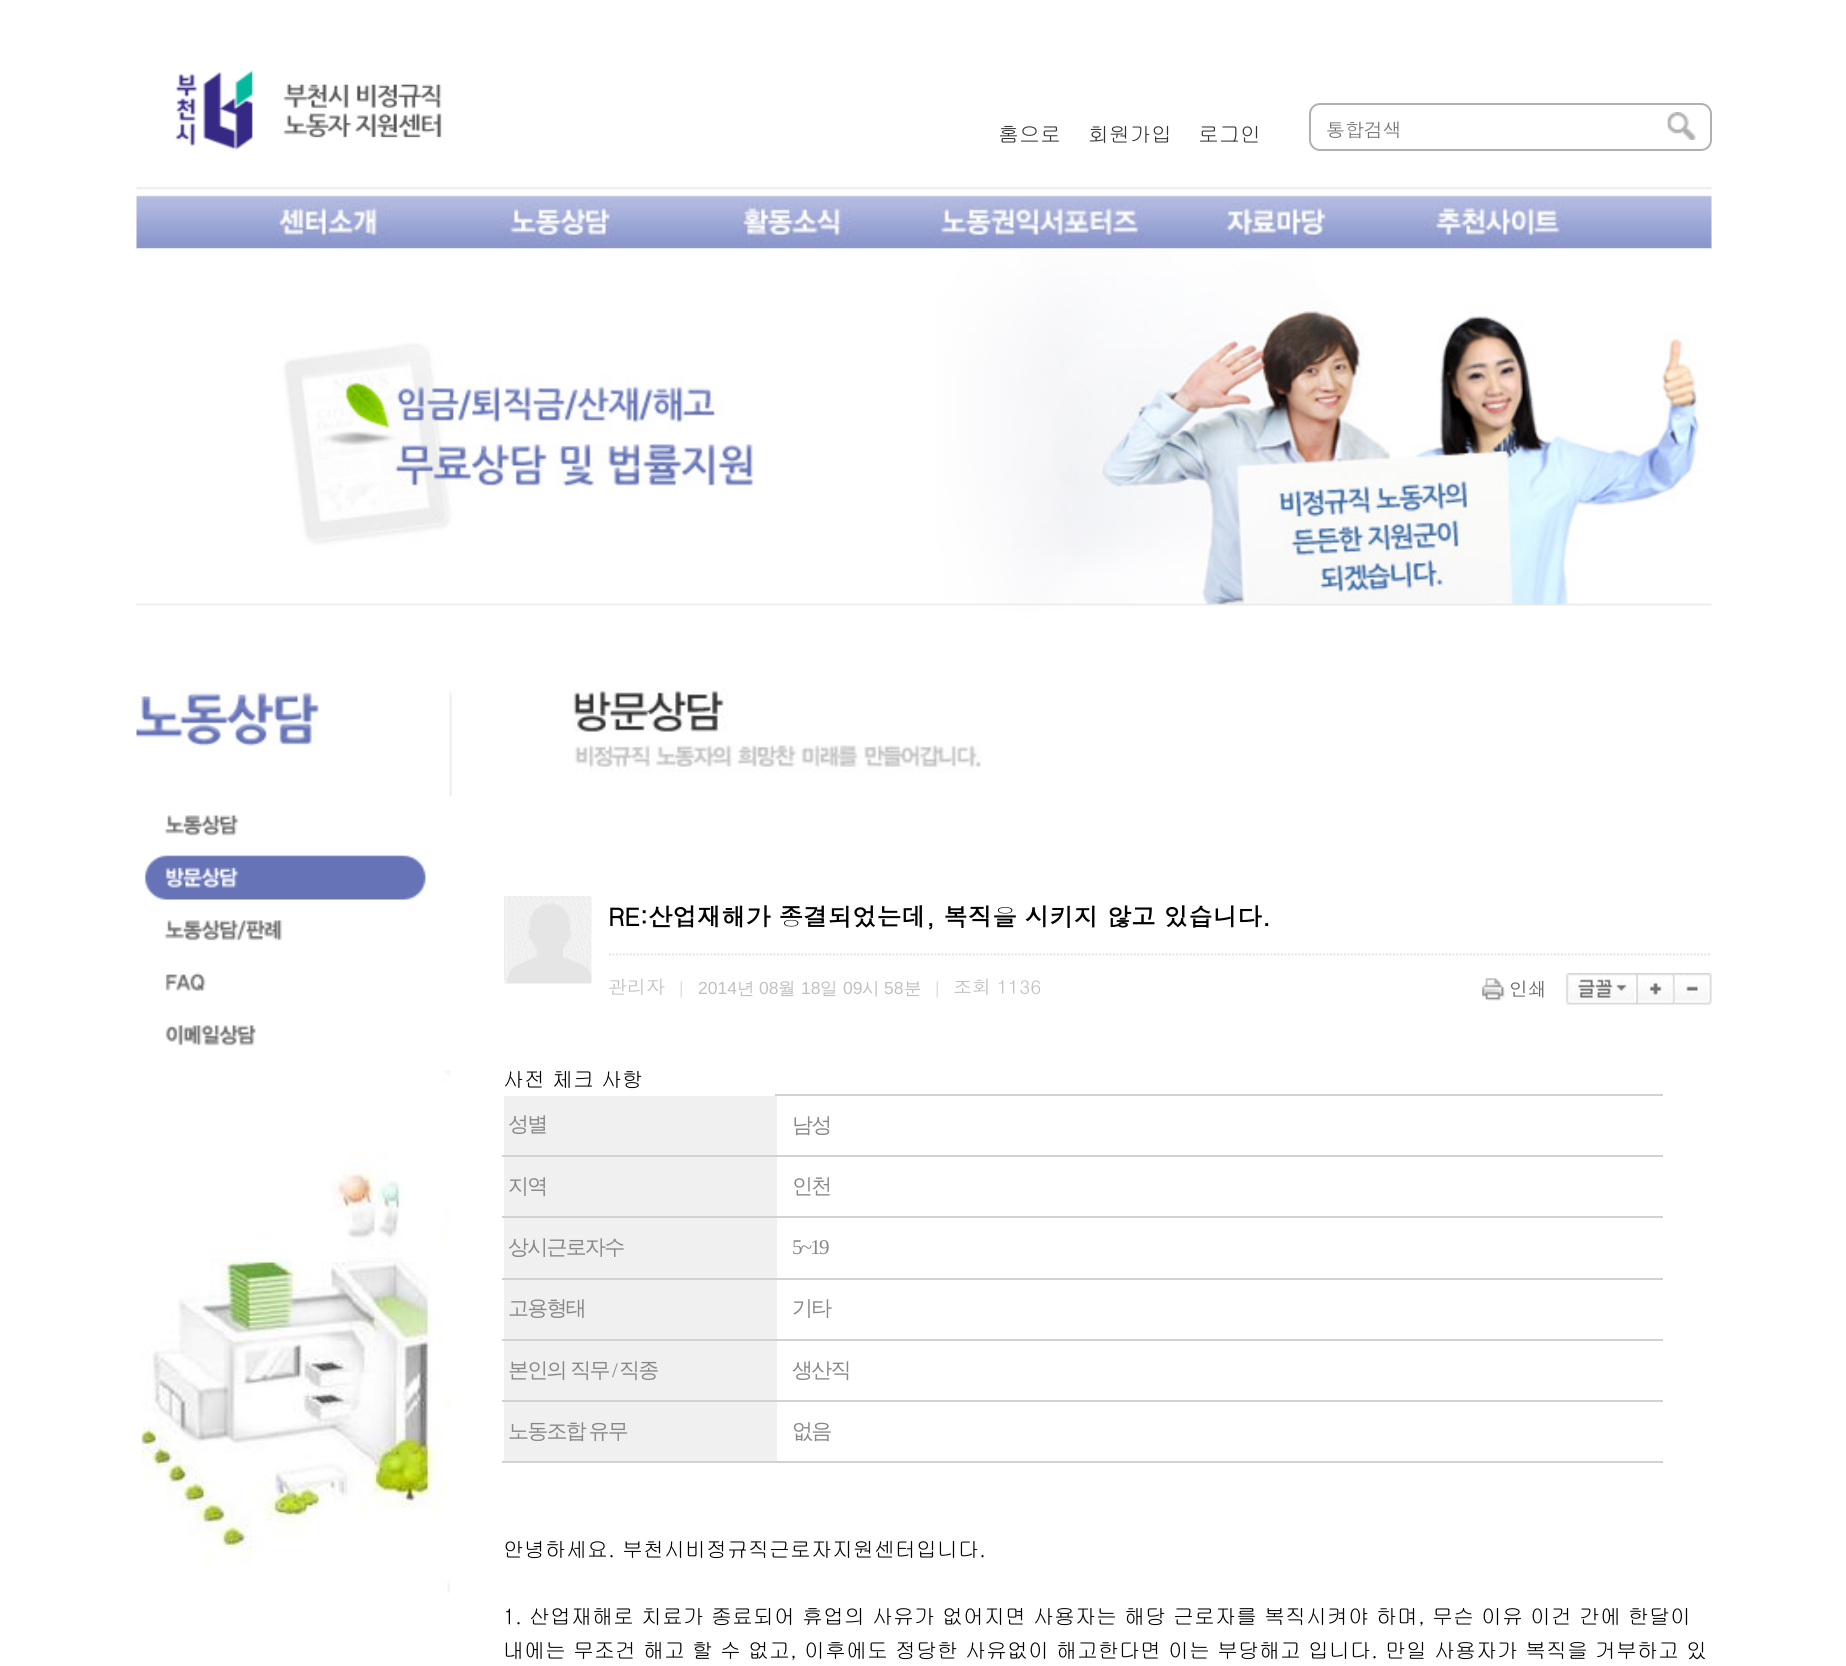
import math
import cairo

surface = cairo.ImageSurface(cairo.FORMAT_RGB24, 1846, 1666)
ctx = cairo.Context(surface)
options = cairo.FontOptions()
options.set_hint_metrics(cairo.HINT_METRICS_OFF)
options.set_hint_style(cairo.HINT_STYLE_NONE)
ctx.set_font_options(options)
ctx.set_miter_limit(4)


def set_color(code):
    ctx.set_source_rgb(*(v / 255 for v in bytes.fromhex(code[-6:])))


def draw_text(x, y, s, family, size, color, bold=False, italic=False):
    ctx.select_font_face(family, cairo.FONT_SLANT_ITALIC if italic else cairo.FONT_SLANT_NORMAL, cairo.FONT_WEIGHT_BOLD if bold else cairo.FONT_WEIGHT_NORMAL)
    ctx.set_font_size(size)
    set_color(color)
    ctx.move_to(x, y)
    ctx.show_text(s)


def draw_spaced(x, y, s, letter, word):
    ctx.move_to(x, y)
    for ch in s:
        ctx.show_text(ch)
        ctx.rel_move_to(letter + word * (ch == ' '), 0)


def fill_rect(x, y, w, h, color):
    set_color(color)
    ctx.rectangle(x, y, w, h)
    ctx.fill()


def rounded_rect(x, y, w, h, r):
    ctx.new_sub_path()
    for i, (u, v) in enumerate([(x + w - r, y + h - r), (x + r, y + h - r), (x + r, y + r), (x + w - r, y + r)]):
        ctx.arc(u, v, r, i * math.pi / 2, (i + 1) * math.pi / 2)
    ctx.close_path()


def draw_image(path, x, y, w, h):
    ctx.save()
    ctx.set_source_surface(cairo.ImageSurface.create_from_png(path), x, y)
    ctx.rectangle(x, y, w, h)
    ctx.fill()
    ctx.restore()


set_color("#ffffff")
ctx.paint()
draw_image("assets/img1.png", 175, 70, 267, 80)
draw_text(998, 142, "홈으로", "Gulim", 21, "#333333")
draw_text(1088, 142, "회원가입", "Gulim", 21, "#333333")
draw_text(1198, 142, "로그인", "Gulim", 21, "#333333")
rounded_rect(1310, 104, 401, 46, 10)
set_color("#b0b0b0")
ctx.stroke()
draw_text(1326, 137, "통합검색", "Dotum", 19, "#757575")
draw_image("assets/img2.png", 1667, 112, 29, 28)
draw_image("assets/img3.png", 136, 187, 1576, 62)
draw_image("assets/img4.png", 136, 248, 1576, 358)
draw_image("assets/img5.png", 136, 605, 368, 192)
draw_image("assets/img6.png", 504, 605, 577, 168)
draw_image("assets/img7.png", 164, 815, 75, 21)
draw_image("assets/img8.png", 144, 855, 282, 45)
draw_image("assets/img9.png", 164, 920, 119, 21)
draw_image("assets/img10.png", 165, 972, 41, 19)
draw_image("assets/img11.png", 165, 1025, 91, 21)
draw_image("assets/img12.png", 141, 1071, 309, 522)
draw_image("assets/img13.png", 504, 896, 88, 88)
ctx.new_path()
ctx.move_to(609, 954.5)
ctx.line_to(1711.5, 954.5)
set_color("#dfdfdf")
ctx.set_line_width(1.8)
ctx.set_dash([1.75, 1.75])
ctx.stroke()
draw_text(608, 926, "RE:산업재해가 종결되었는데, 복직을 시키지 않고 있습니다.", "Dotum", 24.5, "#000000", bold=True)
draw_text(608, 994, "관리자", "Dotum", 19, "#c0c0c0")
draw_text(679, 994, "|", "Liberation Sans", 17.5, "#dfdfdf")
draw_text(698, 994, "2014", "Liberation Sans", 17.5, "#c0c0c0")
draw_text(737, 994, "년", "WenQuanYi Zen Hei Medium", 17.5, "#c0c0c0")
draw_text(759, 994, "08", "Liberation Sans", 17.5, "#c0c0c0")
draw_text(778, 994, "월", "WenQuanYi Zen Hei Medium", 17.5, "#c0c0c0")
draw_text(801, 994, "18", "Liberation Sans", 17.5, "#c0c0c0")
draw_text(820, 994, "일", "WenQuanYi Zen Hei Medium", 17.5, "#c0c0c0")
draw_text(843, 994, "09", "Liberation Sans", 17.5, "#c0c0c0")
draw_text(862, 994, "시", "WenQuanYi Zen Hei Medium", 17.5, "#c0c0c0")
draw_text(884, 994, "58", "Liberation Sans", 17.5, "#c0c0c0")
draw_text(904, 994, "분", "WenQuanYi Zen Hei Medium", 17.5, "#c0c0c0")
draw_text(935, 994, "|", "Liberation Sans", 17.5, "#dfdfdf")
draw_text(953, 994, "조회", "Dotum", 19, "#c0c0c0")
draw_text(997, 994, "1136", "Dotum", 19, "#c0c0c0")
draw_image("assets/img14.png", 1482, 978, 23, 23)
draw_text(1509, 996, "인쇄", "Dotum", 19, "#666666")
draw_image("assets/img15.png", 1566, 973, 72, 32)
draw_image("assets/img16.png", 1638, 973, 37, 32)
draw_image("assets/img17.png", 1674, 973, 38, 32)
draw_text(503, 1087, "사전 체크 사항", "Gulim", 21, "#000000")
fill_rect(504, 1096, 273, 59, "#f0f0f0")
ctx.select_font_face("WenQuanYi Zen Hei Medium")
set_color("#888888")
draw_spaced(508, 1131, "성별", -1.75, 0)
fill_rect(775, 1094, 888, 2, "#d2d2d2")
set_color("#888888")
draw_spaced(792, 1132, "남성", -1.75, 0)
fill_rect(504, 1157, 273, 59, "#f0f0f0")
set_color("#888888")
draw_spaced(508, 1193, "지역", -1.75, 0)
fill_rect(502, 1155, 1161, 2, "#d2d2d2")
set_color("#888888")
draw_spaced(792, 1193, "인천", -1.75, 0)
fill_rect(504, 1218, 273, 60, "#f0f0f0")
set_color("#888888")
draw_spaced(508, 1254, "상시근로자수", -1.75, 0)
fill_rect(502, 1216, 1161, 2, "#d2d2d2")
ctx.select_font_face("Liberation Serif")
set_color("#888888")
draw_spaced(792, 1254, "5~19", -1.75, 0)
fill_rect(504, 1280, 273, 59, "#f0f0f0")
ctx.select_font_face("WenQuanYi Zen Hei Medium")
set_color("#888888")
draw_spaced(508, 1315, "고용형태", -1.75, 0)
fill_rect(502, 1278, 1161, 2, "#d2d2d2")
set_color("#888888")
draw_spaced(792, 1315, "기타", -1.75, 0)
fill_rect(504, 1341, 273, 59, "#f0f0f0")
set_color("#888888")
draw_spaced(508, 1377, "본인의 직무", -1.75, 0)
ctx.select_font_face("Liberation Serif")
draw_spaced(612, 1377, "/", -1.75, 0)
ctx.select_font_face("WenQuanYi Zen Hei Medium")
draw_spaced(619, 1377, "직종", -1.75, 0)
fill_rect(502, 1339, 1161, 2, "#d2d2d2")
set_color("#888888")
draw_spaced(792, 1377, "생산직", -1.75, 0)
fill_rect(504, 1402, 273, 59, "#f0f0f0")
set_color("#888888")
draw_spaced(508, 1438, "노동조합 유무", -1.75, -1)
fill_rect(502, 1400, 1161, 2, "#d2d2d2")
fill_rect(502, 1461, 1161, 2, "#d2d2d2")
set_color("#888888")
draw_spaced(792, 1438, "없음", -1.75, 0)
draw_text(503, 1557, "안녕하세요. 부천시비정규직근로자지원센터입니다.", "Gulim", 21, "#000000")
draw_text(503, 1624, "1. 산업재해로 치료가 종료되어 휴업의 사유가 없어지면 사용자는 해당 근로자를 복직시켜야 하며, 무슨 이유 이건 간에 한달이", "Gulim", 21, "#000000")
draw_text(503, 1658, "내에는 무조건 해고 할 수 없고, 이후에도 정당한 사유없이 해고한다면 이는 부당해고 입니다. 만일 사용자가 복직을 거부하고 있", "Gulim", 21, "#000000")
surface.write_to_png("output.png")
